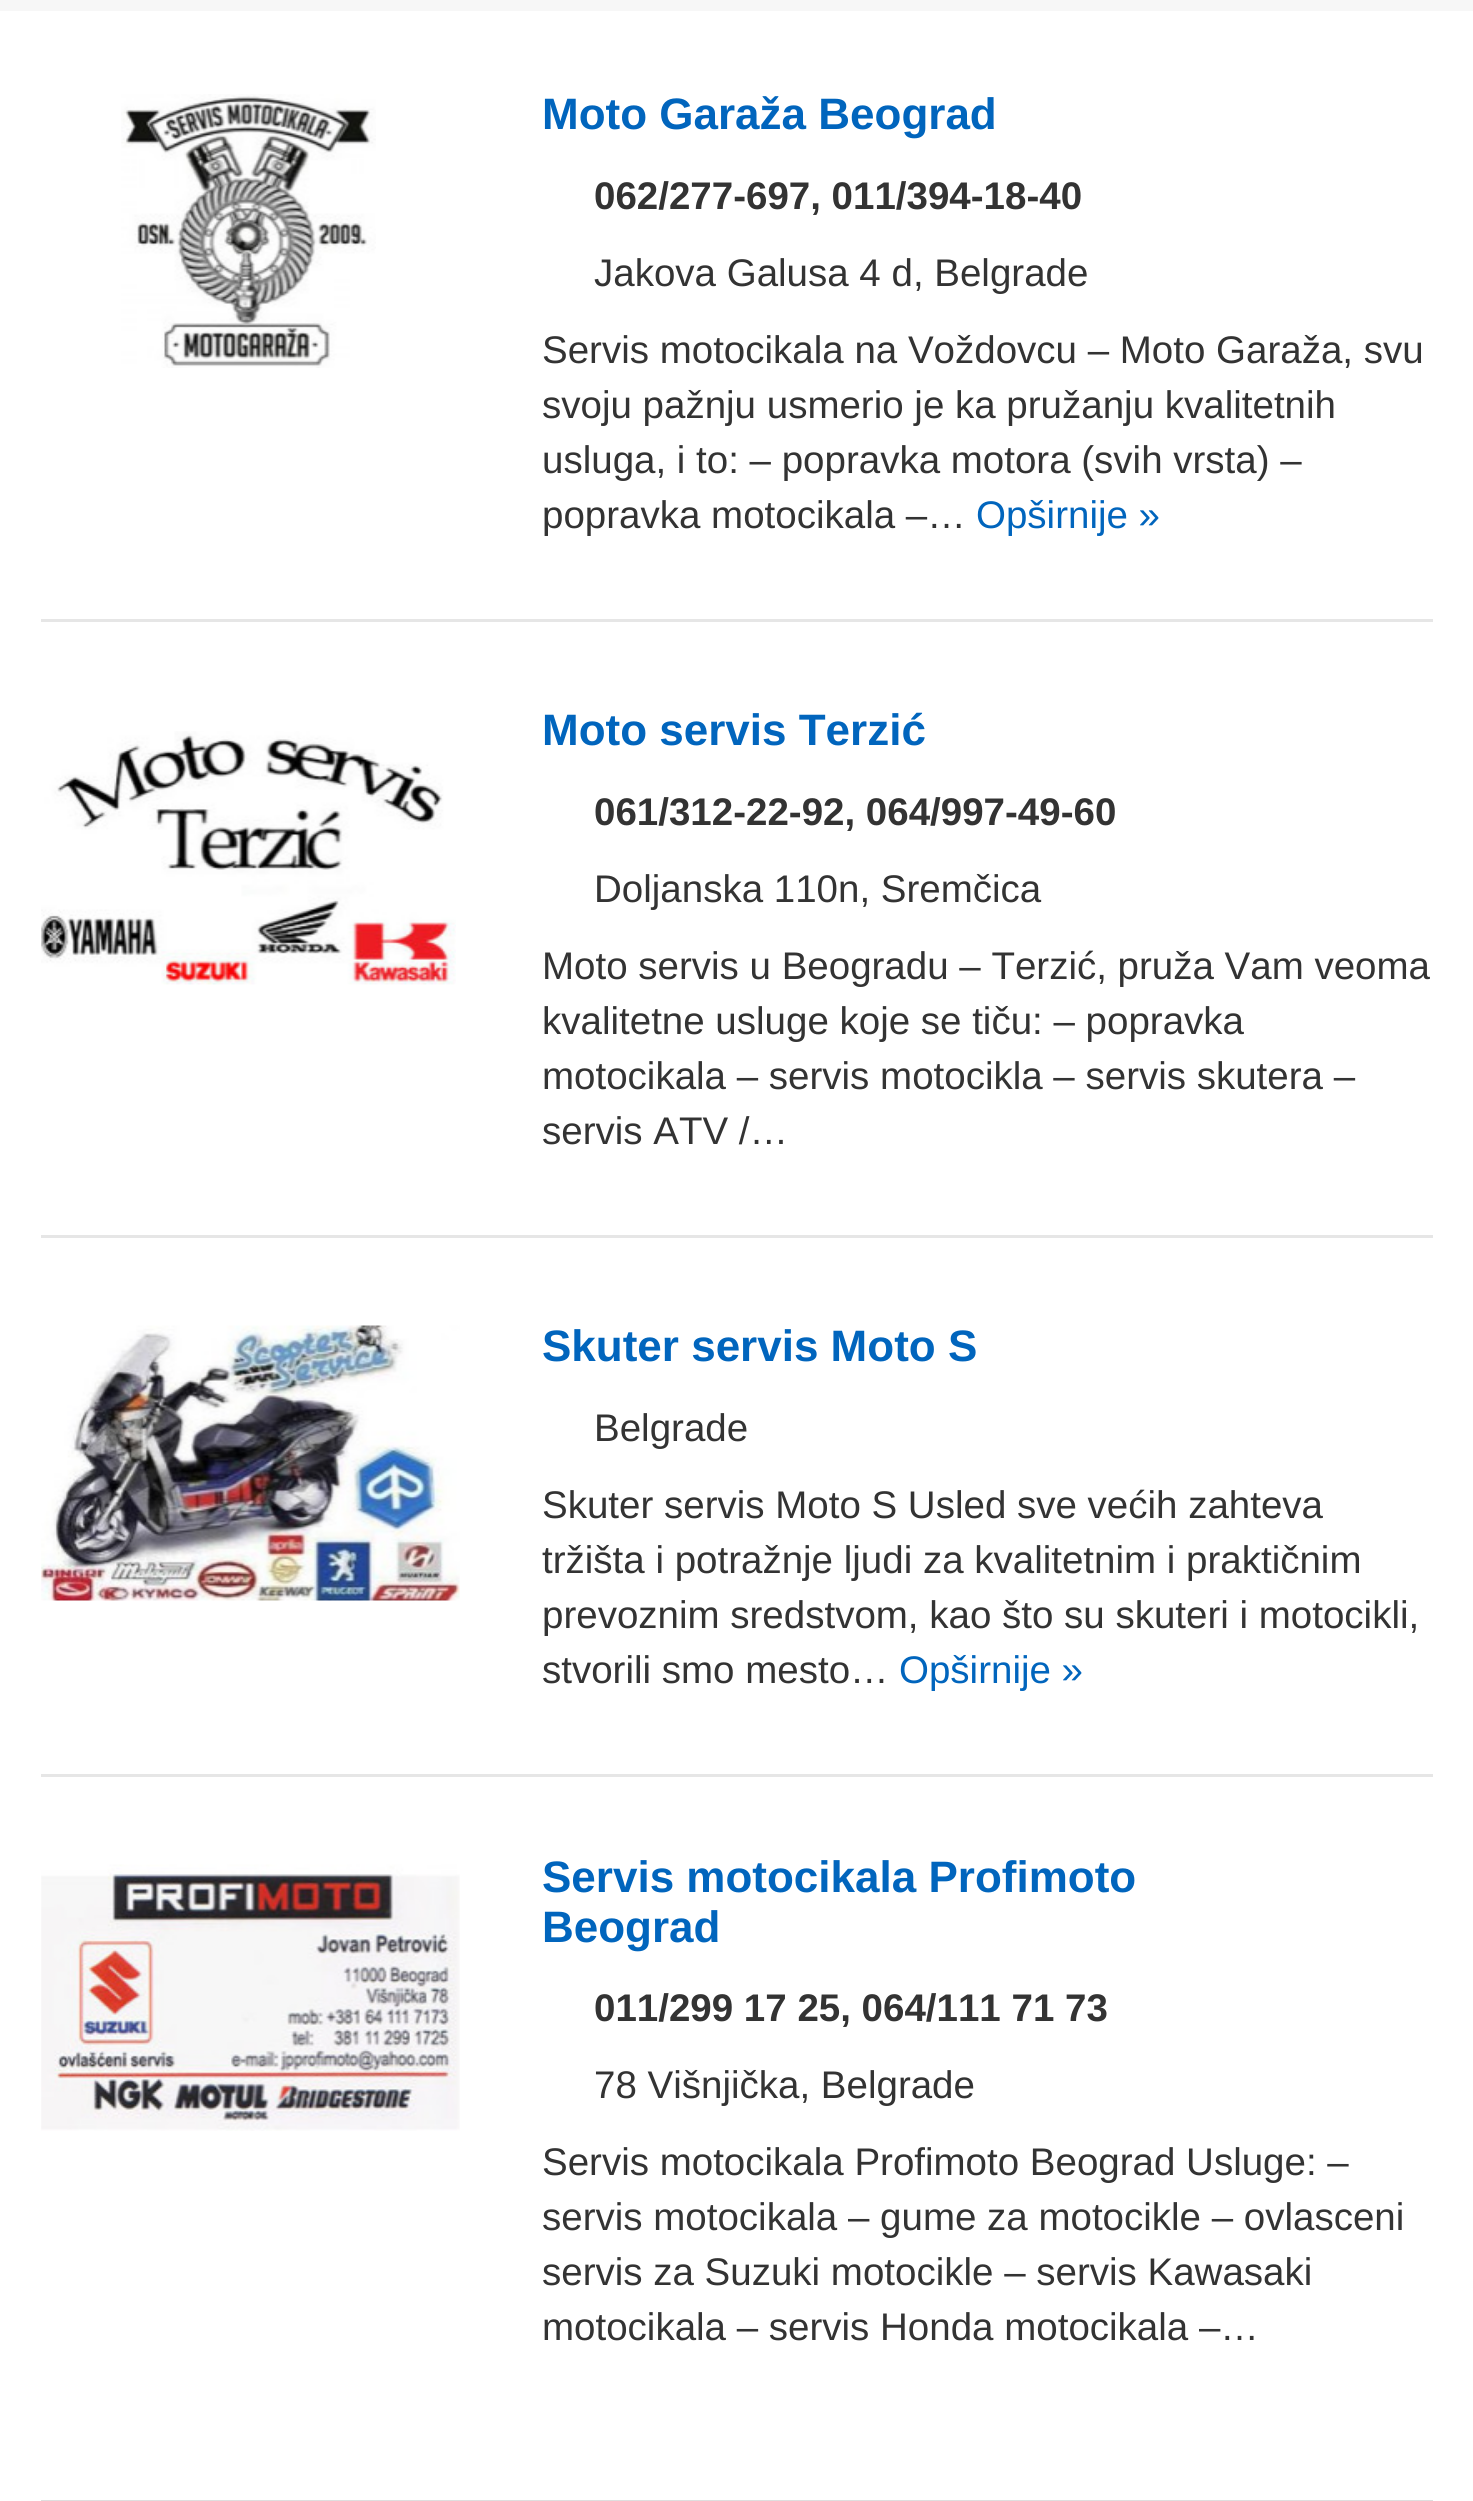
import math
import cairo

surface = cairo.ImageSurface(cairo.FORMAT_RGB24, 1473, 2501)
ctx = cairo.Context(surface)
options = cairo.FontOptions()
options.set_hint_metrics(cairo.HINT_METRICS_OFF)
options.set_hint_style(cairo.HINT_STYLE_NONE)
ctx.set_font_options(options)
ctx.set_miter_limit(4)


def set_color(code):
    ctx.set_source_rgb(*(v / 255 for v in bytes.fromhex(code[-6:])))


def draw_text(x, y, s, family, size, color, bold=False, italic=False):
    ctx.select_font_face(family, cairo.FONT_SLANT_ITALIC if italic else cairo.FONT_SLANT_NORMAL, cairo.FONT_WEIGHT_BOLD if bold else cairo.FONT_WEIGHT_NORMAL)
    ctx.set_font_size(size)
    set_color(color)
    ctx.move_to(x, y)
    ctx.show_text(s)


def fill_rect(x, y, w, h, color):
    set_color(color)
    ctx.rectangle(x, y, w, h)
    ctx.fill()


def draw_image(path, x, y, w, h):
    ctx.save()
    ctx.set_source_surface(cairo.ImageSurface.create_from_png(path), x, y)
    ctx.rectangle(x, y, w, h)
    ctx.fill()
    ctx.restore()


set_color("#ffffff")
ctx.paint()
fill_rect(0, 0, 1473, 11, "#f7f7f7")
fill_rect(41, 619, 1392, 3, "#e6e6e6")
draw_image("assets/img1.png", 121, 94, 255, 274)
draw_text(542, 129, "Moto Garaža Beograd", "Liberation Sans", 44, "#0165bd", bold=True)
draw_text(594, 209, "062/277-697, 011/394-18-40", "Liberation Sans", 38.5, "#333333", bold=True)
draw_text(594, 286, "Jakova Galusa 4 d, Belgrade", "Liberation Sans", 38.5, "#333333")
draw_text(542, 363, "Servis motocikala na Voždovcu – Moto Garaža, svu", "Liberation Sans", 38.5, "#333333")
draw_text(542, 418, "svoju pažnju usmerio je ka pružanju kvalitetnih", "Liberation Sans", 38.5, "#333333")
draw_text(542, 473, "usluga, i to: – popravka motora (svih vrsta) –", "Liberation Sans", 38.5, "#333333")
draw_text(542, 528, "popravka motocikala –…", "Liberation Sans", 38.5, "#333333")
draw_text(976, 528, "Opširnije »", "Liberation Sans", 38.5, "#0165bd")
fill_rect(41, 1235, 1392, 3, "#e6e6e6")
draw_image("assets/img2.png", 41, 731, 415, 254)
draw_text(542, 745, "Moto servis Terzić", "Liberation Sans", 44, "#0165bd", bold=True)
draw_text(594, 825, "061/312-22-92, 064/997-49-60", "Liberation Sans", 38.5, "#333333", bold=True)
draw_text(594, 902, "Doljanska 110n, Sremčica", "Liberation Sans", 38.5, "#333333")
draw_text(542, 979, "Moto servis u Beogradu – Terzić, pruža Vam veoma", "Liberation Sans", 38.5, "#333333")
draw_text(542, 1034, "kvalitetne usluge koje se tiču: – popravka", "Liberation Sans", 38.5, "#333333")
draw_text(542, 1089, "motocikala – servis motocikla – servis skutera –", "Liberation Sans", 38.5, "#333333")
draw_text(542, 1144, "servis ATV /…", "Liberation Sans", 38.5, "#333333")
fill_rect(41, 1774, 1392, 3, "#e6e6e6")
draw_image("assets/img3.png", 41, 1325, 419, 276)
draw_text(542, 1361, "Skuter servis Moto S", "Liberation Sans", 44, "#0165bd", bold=True)
draw_text(594, 1441, "Belgrade", "Liberation Sans", 38.5, "#333333")
draw_text(542, 1518, "Skuter servis Moto S Usled sve većih zahteva", "Liberation Sans", 38.5, "#333333")
draw_text(542, 1573, "tržišta i potražnje ljudi za kvalitetnim i praktičnim", "Liberation Sans", 38.5, "#333333")
draw_text(542, 1628, "prevoznim sredstvom, kao što su skuteri i motocikli,", "Liberation Sans", 38.5, "#333333")
draw_text(542, 1683, "stvorili smo mesto…", "Liberation Sans", 38.5, "#333333")
draw_text(899, 1683, "Opširnije »", "Liberation Sans", 38.5, "#0165bd")
draw_image("assets/img4.png", 41, 1864, 419, 267)
draw_text(542, 1892, "Servis motocikala Profimoto", "Liberation Sans", 44, "#0165bd", bold=True)
draw_text(542, 1942, "Beograd", "Liberation Sans", 44, "#0165bd", bold=True)
draw_text(594, 2021, "011/299 17 25, 064/111 71 73", "Liberation Sans", 38.5, "#333333", bold=True)
draw_text(594, 2098, "78 Višnjička, Belgrade", "Liberation Sans", 38.5, "#333333")
draw_text(542, 2175, "Servis motocikala Profimoto Beograd Usluge: –", "Liberation Sans", 38.5, "#333333")
draw_text(542, 2230, "servis motocikala – gume za motocikle – ovlasceni", "Liberation Sans", 38.5, "#333333")
draw_text(542, 2285, "servis za Suzuki motocikle – servis Kawasaki", "Liberation Sans", 38.5, "#333333")
draw_text(542, 2340, "motocikala – servis Honda motocikala –…", "Liberation Sans", 38.5, "#333333")
fill_rect(41, 2500, 1392, 1, "#dedede")
surface.write_to_png("output.png")
